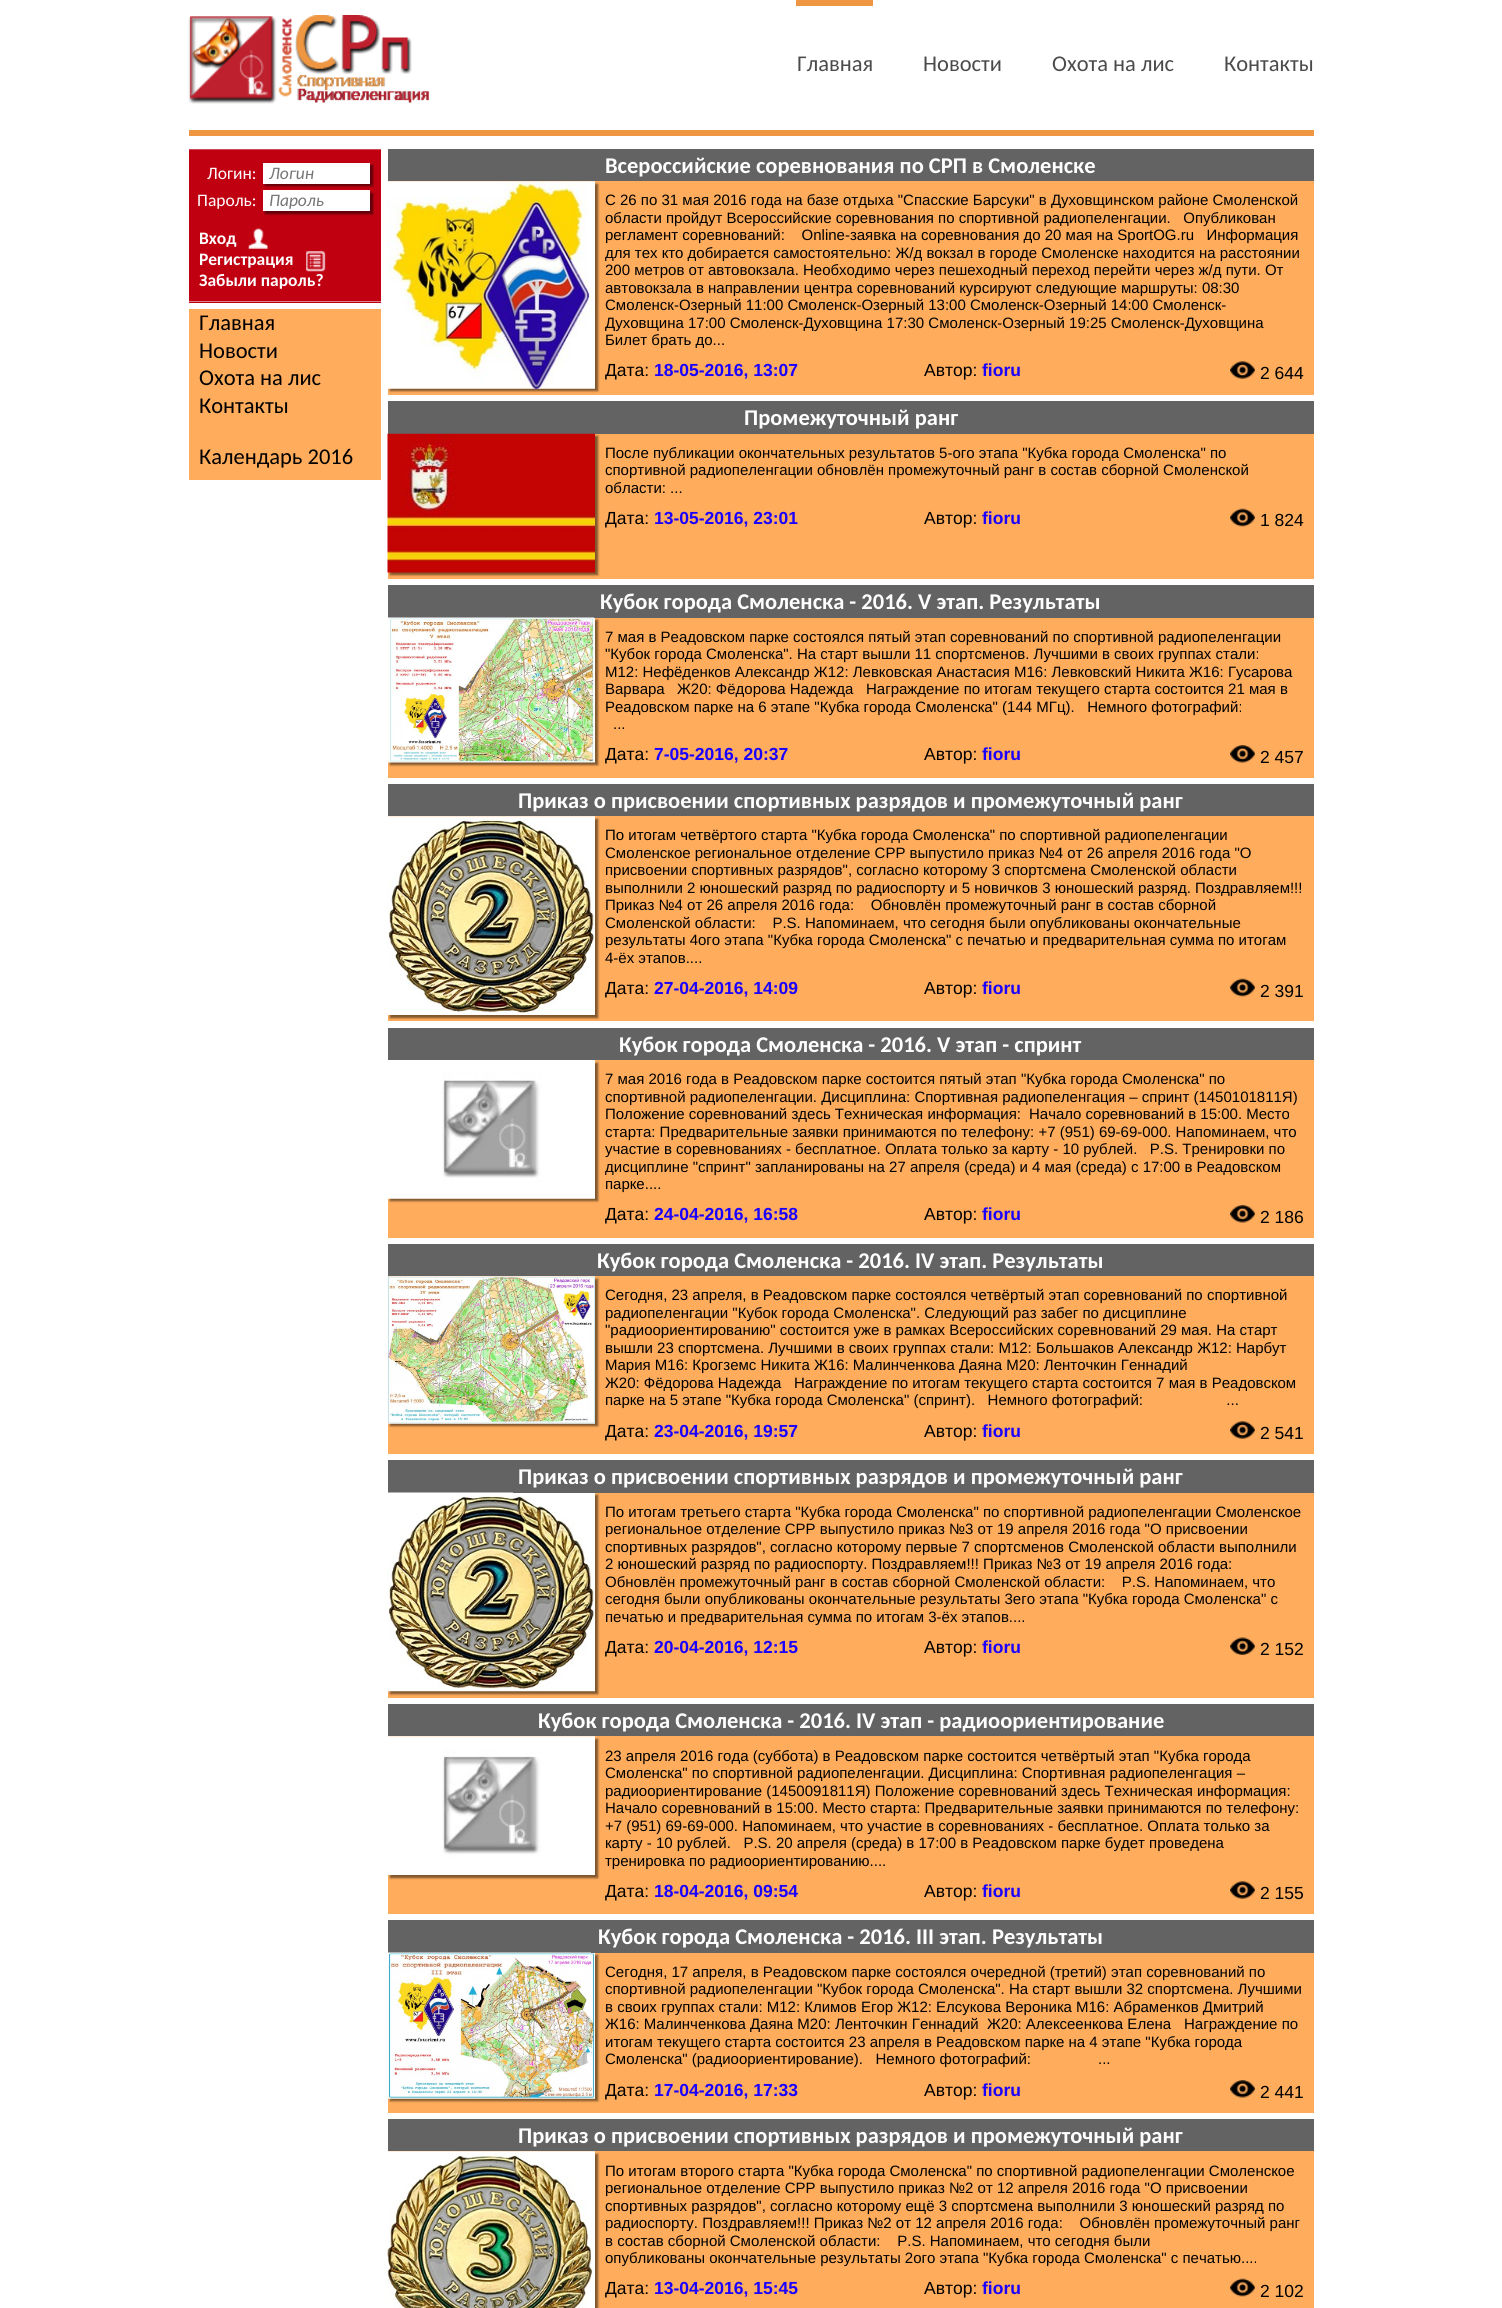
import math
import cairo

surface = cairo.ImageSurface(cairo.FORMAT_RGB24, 1502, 2308)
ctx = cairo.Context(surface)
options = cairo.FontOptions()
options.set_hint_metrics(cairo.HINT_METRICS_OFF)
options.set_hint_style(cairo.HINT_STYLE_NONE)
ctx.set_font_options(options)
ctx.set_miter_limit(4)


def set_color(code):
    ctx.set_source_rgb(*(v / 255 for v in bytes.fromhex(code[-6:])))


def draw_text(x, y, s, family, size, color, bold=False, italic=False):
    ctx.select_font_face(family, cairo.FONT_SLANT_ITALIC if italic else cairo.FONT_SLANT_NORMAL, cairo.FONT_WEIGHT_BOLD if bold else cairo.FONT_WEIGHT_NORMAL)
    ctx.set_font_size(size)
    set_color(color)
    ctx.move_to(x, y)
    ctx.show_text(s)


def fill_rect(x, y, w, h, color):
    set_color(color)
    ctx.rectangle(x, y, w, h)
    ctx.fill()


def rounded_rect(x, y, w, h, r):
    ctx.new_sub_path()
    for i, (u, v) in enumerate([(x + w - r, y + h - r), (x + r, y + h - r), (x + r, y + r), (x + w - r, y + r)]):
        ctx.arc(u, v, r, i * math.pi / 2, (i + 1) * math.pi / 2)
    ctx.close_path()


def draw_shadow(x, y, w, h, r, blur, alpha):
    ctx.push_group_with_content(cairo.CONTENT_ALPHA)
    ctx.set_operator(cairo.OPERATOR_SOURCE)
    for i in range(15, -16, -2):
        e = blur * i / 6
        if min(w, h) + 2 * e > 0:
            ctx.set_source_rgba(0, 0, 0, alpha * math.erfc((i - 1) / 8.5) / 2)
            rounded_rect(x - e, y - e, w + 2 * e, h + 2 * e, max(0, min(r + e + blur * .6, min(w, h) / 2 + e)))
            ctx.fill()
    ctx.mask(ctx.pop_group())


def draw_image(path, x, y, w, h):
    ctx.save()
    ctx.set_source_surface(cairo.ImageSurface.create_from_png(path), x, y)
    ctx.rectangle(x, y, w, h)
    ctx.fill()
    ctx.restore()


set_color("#ffffff")
ctx.paint()
fill_rect(189, 130, 1125, 6, "#ee9641")
draw_image("assets/img1.png", 188, 15, 241, 89)
fill_rect(796, 0, 77, 6, "#ee9641")
draw_text(797, 71, "Главная", "Carlito", 22.5, "#4b4b4b")
draw_text(923, 71, "Новости", "Carlito", 22.5, "#4b4b4b")
draw_text(1052, 71, "Охота на лис", "Carlito", 22.5, "#4b4b4b")
draw_text(1224, 71, "Контакты", "Carlito", 22.5, "#4b4b4b")
fill_rect(189, 150, 192, 153, "#c00011")
fill_rect(189, 149, 192, 1, "#cb4d59")
fill_rect(189, 301, 192, 1, "#da7f87")
draw_text(207, 179, "Логин:", "Carlito", 17.5, "#ffffff")
set_color("#000000")
draw_shadow(265, 165, 108, 21, 0, 1, 0.5)
fill_rect(263, 163, 107, 21, "#ffffff")
draw_text(269, 179, "Логин", "Carlito", 17.5, "#757575", italic=True)
draw_text(197, 206, "Пароль:", "Carlito", 17.5, "#ffffff")
set_color("#000000")
draw_shadow(265, 193, 108, 21, 0, 1, 0.5)
fill_rect(263, 190, 107, 21, "#ffffff")
draw_text(269, 206, "Пароль", "Carlito", 17.5, "#757575", italic=True)
draw_text(199, 244, "Вход", "Carlito", 17.5, "#ffffff", bold=True)
draw_image("assets/img2.png", 248, 228, 20, 21)
draw_text(199, 265, "Регистрация", "Carlito", 17.5, "#ffffff", bold=True)
draw_image("assets/img3.png", 306, 251, 20, 21)
draw_text(199, 286, "Забыли пароль?", "Carlito", 17.5, "#ffffff", bold=True)
fill_rect(189, 309, 192, 171, "#ffac5c")
draw_text(199, 330, "Главная", "Carlito", 22.5, "#000000")
draw_text(199, 358, "Новости", "Carlito", 22.5, "#000000")
draw_text(199, 385, "Охота на лис", "Carlito", 22.5, "#000000")
draw_text(199, 413, "Контакты", "Carlito", 22.5, "#000000")
draw_text(199, 464, "Календарь 2016", "Carlito", 22.5, "#000000")
fill_rect(388, 149, 926, 32, "#636363")
draw_text(605, 173, "Всероссийские соревнования по СРП в Смоленске", "Carlito", 22.5, "#ffffff", bold=True)
fill_rect(388, 181, 926, 214, "#ffac5c")
set_color("#000000")
draw_shadow(390, 184, 208, 207, 0, 1, 0.5)
draw_image("assets/img4.png", 387, 181, 208, 208)
draw_text(605, 205, "С 26 по 31 мая 2016 года на базе отдыха \"Спасские Барсуки\" в Духовщинском районе Смоленской", "Liberation Sans", 15, "#000000")
draw_text(605, 223, "области пройдут Всероссийские соревнования по спортивной радиопеленгации.   Опубликован", "Liberation Sans", 15, "#000000")
draw_text(605, 240, "регламент соревнований:    Online-заявка на соревнования до 20 мая на SportOG.ru   Информация", "Liberation Sans", 15, "#000000")
draw_text(605, 258, "для тех кто добирается самостоятельно: Ж/д вокзал в городе Смоленске находится на расстоянии", "Liberation Sans", 15, "#000000")
draw_text(605, 275, "200 метров от автовокзала. Необходимо через пешеходный переход перейти через ж/д пути. От", "Liberation Sans", 15, "#000000")
draw_text(605, 293, "автовокзала в направлении центра соревнований курсируют следующие маршруты: 08:30", "Liberation Sans", 15, "#000000")
draw_text(605, 310, "Смоленск-Озерный 11:00 Смоленск-Озерный 13:00 Смоленск-Озерный 14:00 Смоленск-", "Liberation Sans", 15, "#000000")
draw_text(605, 328, "Духовщина 17:00 Смоленск-Духовщина 17:30 Смоленск-Озерный 19:25 Смоленск-Духовщина", "Liberation Sans", 15, "#000000")
draw_text(605, 345, "Билет брать до...", "Liberation Sans", 15, "#000000")
draw_text(605, 376, "Дата:", "Liberation Sans", 17.5, "#000000")
draw_text(654, 376, "18-05-2016, 13:07", "Liberation Sans", 17.5, "#1a00ff", bold=True)
draw_text(924, 376, "Автор:", "Liberation Sans", 17.5, "#000000")
draw_text(982, 376, "fioru", "Liberation Sans", 17.5, "#1a00ff", bold=True)
draw_image("assets/img5.png", 1230, 361, 25, 18)
draw_text(1260, 379, "2 644", "Liberation Sans", 17.5, "#000000")
fill_rect(388, 401, 926, 33, "#636363")
draw_text(744, 425, "Промежуточный ранг", "Carlito", 22.5, "#ffffff", bold=True)
fill_rect(388, 434, 926, 145, "#ffac5c")
set_color("#000000")
draw_shadow(390, 436, 208, 139, 0, 1, 0.5)
draw_image("assets/img6.png", 387, 433, 208, 140)
draw_text(605, 458, "После публикации окончательных результатов 5-ого этапа \"Кубка города Смоленска\" по", "Liberation Sans", 15, "#000000")
draw_text(605, 475, "спортивной радиопеленгации обновлён промежуточный ранг в состав сборной Смоленской", "Liberation Sans", 15, "#000000")
draw_text(605, 493, "области: ...", "Liberation Sans", 15, "#000000")
draw_text(605, 524, "Дата:", "Liberation Sans", 17.5, "#000000")
draw_text(654, 524, "13-05-2016, 23:01", "Liberation Sans", 17.5, "#1a00ff", bold=True)
draw_text(924, 524, "Автор:", "Liberation Sans", 17.5, "#000000")
draw_text(982, 524, "fioru", "Liberation Sans", 17.5, "#1a00ff", bold=True)
draw_image("assets/img7.png", 1230, 508, 25, 19)
draw_text(1260, 526, "1 824", "Liberation Sans", 17.5, "#000000")
fill_rect(388, 585, 926, 33, "#636363")
draw_text(600, 609, "Кубок города Смоленска - 2016. V этап. Результаты", "Carlito", 22.5, "#ffffff", bold=True)
fill_rect(388, 618, 926, 160, "#ffac5c")
set_color("#000000")
draw_shadow(390, 620, 208, 145, 0, 1, 0.5)
draw_image("assets/img8.png", 388, 617, 207, 146)
fill_rect(594, 617, 1, 1, "#636363")
draw_text(605, 642, "7 мая в Реадовском парке состоялся пятый этап соревнований по спортивной радиопеленгации", "Liberation Sans", 15, "#000000")
draw_text(605, 659, "\"Кубок города Смоленска\". На старт вышли 11 спортсменов. Лучшими в своих группах стали:", "Liberation Sans", 15, "#000000")
draw_text(605, 677, "М12: Нефёденков Александр Ж12: Левковская Анастасия М16: Левковский Никита Ж16: Гусарова", "Liberation Sans", 15, "#000000")
draw_text(605, 694, "Варвара", "Liberation Sans", 15, "#000000")
draw_text(677, 694, "Ж20: Фёдорова Надежда", "Liberation Sans", 15, "#000000")
draw_text(866, 694, "Награждение по итогам текущего старта состоится 21 мая в", "Liberation Sans", 15, "#000000")
draw_text(605, 712, "Реадовском парке на 6 этапе \"Кубка города Смоленска\" (144 МГц).   Немного фотографий:", "Liberation Sans", 15, "#000000")
draw_text(613, 729, "...", "Liberation Sans", 15, "#000000")
draw_text(605, 760, "Дата:", "Liberation Sans", 17.5, "#000000")
draw_text(654, 760, "7-05-2016, 20:37", "Liberation Sans", 17.5, "#1a00ff", bold=True)
draw_text(924, 760, "Автор:", "Liberation Sans", 17.5, "#000000")
draw_text(982, 760, "fioru", "Liberation Sans", 17.5, "#1a00ff", bold=True)
draw_image("assets/img9.png", 1230, 745, 25, 18)
draw_text(1260, 763, "2 457", "Liberation Sans", 17.5, "#000000")
fill_rect(388, 784, 926, 32, "#636363")
draw_text(518, 808, "Приказ о присвоении спортивных разрядов и промежуточный ранг", "Carlito", 22.5, "#ffffff", bold=True)
fill_rect(388, 816, 926, 205, "#ffac5c")
set_color("#000000")
draw_shadow(390, 819, 208, 199, 0, 1, 0.5)
draw_image("assets/img10.png", 387, 816, 208, 199)
draw_text(605, 840, "По итогам четвёртого старта \"Кубка города Смоленска\" по спортивной радиопеленгации", "Liberation Sans", 15, "#000000")
draw_text(605, 858, "Смоленское региональное отделение СРР выпустило приказ №4 от 26 апреля 2016 года \"О", "Liberation Sans", 15, "#000000")
draw_text(605, 875, "присвоении спортивных разрядов\", согласно которому 3 спортсмена Смоленской области", "Liberation Sans", 15, "#000000")
draw_text(605, 893, "выполнили 2 юношеский разряд по радиоспорту и 5 новичков 3 юношеский разряд. Поздравляем!!!", "Liberation Sans", 15, "#000000")
draw_text(605, 910, "Приказ №4 от 26 апреля 2016 года:    Обновлён промежуточный ранг в состав сборной", "Liberation Sans", 15, "#000000")
draw_text(605, 928, "Смоленской области:    P.S. Напоминаем, что сегодня были опубликованы окончательные", "Liberation Sans", 15, "#000000")
draw_text(605, 945, "результаты 4ого этапа \"Кубка города Смоленска\" с печатью и предварительная сумма по итогам", "Liberation Sans", 15, "#000000")
draw_text(605, 963, "4-ёх этапов....", "Liberation Sans", 15, "#000000")
draw_text(605, 994, "Дата:", "Liberation Sans", 17.5, "#000000")
draw_text(654, 994, "27-04-2016, 14:09", "Liberation Sans", 17.5, "#1a00ff", bold=True)
draw_text(924, 994, "Автор:", "Liberation Sans", 17.5, "#000000")
draw_text(982, 994, "fioru", "Liberation Sans", 17.5, "#1a00ff", bold=True)
draw_image("assets/img7.png", 1230, 978, 25, 19)
draw_text(1260, 997, "2 391", "Liberation Sans", 17.5, "#000000")
fill_rect(388, 1028, 926, 32, "#636363")
draw_text(619, 1052, "Кубок города Смоленска - 2016. V этап - спринт", "Carlito", 22.5, "#ffffff", bold=True)
fill_rect(388, 1060, 926, 178, "#ffac5c")
set_color("#000000")
draw_shadow(390, 1063, 208, 138, 0, 1, 0.5)
draw_image("assets/img11.png", 388, 1060, 207, 139)
draw_text(605, 1084, "7 мая 2016 года в Реадовском парке состоится пятый этап \"Кубка города Смоленска\" по", "Liberation Sans", 15, "#000000")
draw_text(605, 1102, "спортивной радиопеленгации. Дисциплина: Спортивная радиопеленгация – спринт (1450101811Я)", "Liberation Sans", 15, "#000000")
draw_text(605, 1119, "Положение соревнований здесь Техническая информация:", "Liberation Sans", 15, "#000000")
draw_text(1029, 1119, "Начало соревнований в 15:00. Место", "Liberation Sans", 15, "#000000")
draw_text(605, 1137, "старта: Предварительные заявки принимаются по телефону: +7 (951) 69-69-000. Напоминаем, что", "Liberation Sans", 15, "#000000")
draw_text(605, 1154, "участие в соревнованиях - бесплатное. Оплата только за карту - 10 рублей.   P.S. Тренировки по", "Liberation Sans", 15, "#000000")
draw_text(605, 1172, "дисциплине \"спринт\" запланированы на 27 апреля (среда) и 4 мая (среда) с 17:00 в Реадовском", "Liberation Sans", 15, "#000000")
draw_text(605, 1189, "парке....", "Liberation Sans", 15, "#000000")
draw_text(605, 1220, "Дата:", "Liberation Sans", 17.5, "#000000")
draw_text(654, 1220, "24-04-2016, 16:58", "Liberation Sans", 17.5, "#1a00ff", bold=True)
draw_text(924, 1220, "Автор:", "Liberation Sans", 17.5, "#000000")
draw_text(982, 1220, "fioru", "Liberation Sans", 17.5, "#1a00ff", bold=True)
draw_image("assets/img9.png", 1230, 1205, 25, 18)
draw_text(1260, 1223, "2 186", "Liberation Sans", 17.5, "#000000")
fill_rect(388, 1244, 926, 32, "#636363")
draw_text(597, 1268, "Кубок города Смоленска - 2016. IV этап. Результаты", "Carlito", 22.5, "#ffffff", bold=True)
fill_rect(388, 1276, 926, 178, "#ffac5c")
set_color("#000000")
draw_shadow(390, 1279, 208, 147, 0, 1, 0.5)
draw_image("assets/img12.png", 387, 1276, 208, 148)
draw_text(605, 1300, "Сегодня, 23 апреля, в Реадовском парке состоялся четвёртый этап соревнований по спортивной", "Liberation Sans", 15, "#000000")
draw_text(605, 1318, "радиопеленгации \"Кубок города Смоленска\". Следующий раз забег по дисциплине", "Liberation Sans", 15, "#000000")
draw_text(605, 1335, "\"радиоориентированию\" состоится уже в рамках Всероссийских соревнований 29 мая. На старт", "Liberation Sans", 15, "#000000")
draw_text(605, 1353, "вышли 23 спортсмена. Лучшими в своих группах стали: М12: Большаков Александр Ж12: Нарбут", "Liberation Sans", 15, "#000000")
draw_text(605, 1370, "Мария М16: Крогземс Никита Ж16: Малинченкова Даяна М20: Ленточкин Геннадий", "Liberation Sans", 15, "#000000")
draw_text(605, 1388, "Ж20: Фёдорова Надежда", "Liberation Sans", 15, "#000000")
draw_text(794, 1388, "Награждение по итогам текущего старта состоится 7 мая в Реадовском", "Liberation Sans", 15, "#000000")
draw_text(605, 1405, "парке на 5 этапе \"Кубка города Смоленска\" (спринт).   Немного фотографий:                    ...", "Liberation Sans", 15, "#000000")
draw_text(605, 1437, "Дата:", "Liberation Sans", 17.5, "#000000")
draw_text(654, 1437, "23-04-2016, 19:57", "Liberation Sans", 17.5, "#1a00ff", bold=True)
draw_text(924, 1437, "Автор:", "Liberation Sans", 17.5, "#000000")
draw_text(982, 1437, "fioru", "Liberation Sans", 17.5, "#1a00ff", bold=True)
draw_image("assets/img5.png", 1230, 1421, 25, 18)
draw_text(1260, 1439, "2 541", "Liberation Sans", 17.5, "#000000")
fill_rect(388, 1460, 926, 33, "#636363")
draw_text(518, 1484, "Приказ о присвоении спортивных разрядов и промежуточный ранг", "Carlito", 22.5, "#ffffff", bold=True)
fill_rect(388, 1493, 926, 205, "#ffac5c")
set_color("#000000")
draw_shadow(390, 1495, 208, 199, 0, 1, 0.5)
draw_image("assets/img13.png", 387, 1492, 208, 200)
fill_rect(513, 1492, 82, 1, "#636363")
draw_text(605, 1517, "По итогам третьего старта \"Кубка города Смоленска\" по спортивной радиопеленгации Смоленское", "Liberation Sans", 15, "#000000")
draw_text(605, 1534, "региональное отделение СРР выпустило приказ №3 от 19 апреля 2016 года \"О присвоении", "Liberation Sans", 15, "#000000")
draw_text(605, 1552, "спортивных разрядов\", согласно которому первые 7 спортсменов Смоленской области выполнили", "Liberation Sans", 15, "#000000")
draw_text(605, 1569, "2 юношеский разряд по радиоспорту. Поздравляем!!! Приказ №3 от 19 апреля 2016 года:", "Liberation Sans", 15, "#000000")
draw_text(605, 1587, "Обновлён промежуточный ранг в состав сборной Смоленской области:    P.S. Напоминаем, что", "Liberation Sans", 15, "#000000")
draw_text(605, 1604, "сегодня были опубликованы окончательные результаты 3его этапа \"Кубка города Смоленска\" с", "Liberation Sans", 15, "#000000")
draw_text(605, 1622, "печатью и предварительная сумма по итогам 3-ёх этапов....", "Liberation Sans", 15, "#000000")
draw_text(605, 1653, "Дата:", "Liberation Sans", 17.5, "#000000")
draw_text(654, 1653, "20-04-2016, 12:15", "Liberation Sans", 17.5, "#1a00ff", bold=True)
draw_text(924, 1653, "Автор:", "Liberation Sans", 17.5, "#000000")
draw_text(982, 1653, "fioru", "Liberation Sans", 17.5, "#1a00ff", bold=True)
draw_image("assets/img14.png", 1230, 1637, 25, 18)
draw_text(1260, 1655, "2 152", "Liberation Sans", 17.5, "#000000")
fill_rect(388, 1704, 926, 32, "#636363")
draw_text(538, 1728, "Кубок города Смоленска - 2016. IV этап - радиоориентирование", "Carlito", 22.5, "#ffffff", bold=True)
fill_rect(388, 1736, 926, 178, "#ffac5c")
set_color("#000000")
draw_shadow(390, 1739, 208, 139, 0, 1, 0.5)
draw_image("assets/img15.png", 388, 1736, 207, 139)
draw_text(605, 1761, "23 апреля 2016 года (суббота) в Реадовском парке состоится четвёртый этап \"Кубка города", "Liberation Sans", 15, "#000000")
draw_text(605, 1778, "Смоленска\" по спортивной радиопеленгации. Дисциплина: Спортивная радиопеленгация –", "Liberation Sans", 15, "#000000")
draw_text(605, 1796, "радиоориентирование (1450091811Я) Положение соревнований здесь Техническая информация:", "Liberation Sans", 15, "#000000")
draw_text(605, 1813, "Начало соревнований в 15:00. Место старта: Предварительные заявки принимаются по телефону:", "Liberation Sans", 15, "#000000")
draw_text(605, 1831, "+7 (951) 69-69-000. Напоминаем, что участие в соревнованиях - бесплатное. Оплата только за", "Liberation Sans", 15, "#000000")
draw_text(605, 1848, "карту - 10 рублей.   P.S. 20 апреля (среда) в 17:00 в Реадовском парке будет проведена", "Liberation Sans", 15, "#000000")
draw_text(605, 1866, "тренировка по радиоориентированию....", "Liberation Sans", 15, "#000000")
draw_text(605, 1897, "Дата:", "Liberation Sans", 17.5, "#000000")
draw_text(654, 1897, "18-04-2016, 09:54", "Liberation Sans", 17.5, "#1a00ff", bold=True)
draw_text(924, 1897, "Автор:", "Liberation Sans", 17.5, "#000000")
draw_text(982, 1897, "fioru", "Liberation Sans", 17.5, "#1a00ff", bold=True)
draw_image("assets/img5.png", 1230, 1881, 25, 18)
draw_text(1260, 1899, "2 155", "Liberation Sans", 17.5, "#000000")
fill_rect(388, 1920, 926, 33, "#636363")
draw_text(598, 1944, "Кубок города Смоленска - 2016. III этап. Результаты", "Carlito", 22.5, "#ffffff", bold=True)
fill_rect(388, 1953, 926, 160, "#ffac5c")
set_color("#000000")
draw_shadow(390, 1955, 208, 146, 0, 1, 0.5)
draw_image("assets/img16.png", 387, 1952, 208, 147)
fill_rect(591, 1952, 4, 1, "#636363")
draw_text(605, 1977, "Сегодня, 17 апреля, в Реадовском парке состоялся очередной (третий) этап соревнований по", "Liberation Sans", 15, "#000000")
draw_text(605, 1994, "спортивной радиопеленгации \"Кубок города Смоленска\". На старт вышли 32 спортсмена. Лучшими", "Liberation Sans", 15, "#000000")
draw_text(605, 2012, "в своих группах стали: М12: Климов Егор Ж12: Елсукова Вероника М16: Абраменков Дмитрий", "Liberation Sans", 15, "#000000")
draw_text(605, 2029, "Ж16: Малинченкова Даяна М20: Ленточкин Геннадий  Ж20: Алексеенкова Елена", "Liberation Sans", 15, "#000000")
draw_text(1184, 2029, "Награждение по", "Liberation Sans", 15, "#000000")
draw_text(605, 2047, "итогам текущего старта состоится 23 апреля в Реадовском парке на 4 этапе \"Кубка города", "Liberation Sans", 15, "#000000")
draw_text(605, 2064, "Смоленска\" (радиоориентирование).   Немного фотографий:", "Liberation Sans", 15, "#000000")
draw_text(1098, 2064, "...", "Liberation Sans", 15, "#000000")
draw_text(605, 2096, "Дата:", "Liberation Sans", 17.5, "#000000")
draw_text(654, 2096, "17-04-2016, 17:33", "Liberation Sans", 17.5, "#1a00ff", bold=True)
draw_text(924, 2096, "Автор:", "Liberation Sans", 17.5, "#000000")
draw_text(982, 2096, "fioru", "Liberation Sans", 17.5, "#1a00ff", bold=True)
draw_image("assets/img9.png", 1230, 2080, 25, 18)
draw_text(1260, 2098, "2 441", "Liberation Sans", 17.5, "#000000")
fill_rect(388, 2119, 926, 32, "#636363")
draw_text(518, 2143, "Приказ о присвоении спортивных разрядов и промежуточный ранг", "Carlito", 22.5, "#ffffff", bold=True)
fill_rect(388, 2151, 926, 157, "#ffac5c")
set_color("#000000")
draw_shadow(390, 2154, 208, 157, 0, 1, 0.5)
draw_image("assets/img17.png", 387, 2151, 208, 157)
draw_text(605, 2176, "По итогам второго старта \"Кубка города Смоленска\" по спортивной радиопеленгации Смоленское", "Liberation Sans", 15, "#000000")
draw_text(605, 2193, "региональное отделение СРР выпустило приказ №2 от 12 апреля 2016 года \"О присвоении", "Liberation Sans", 15, "#000000")
draw_text(605, 2211, "спортивных разрядов\", согласно которому ещё 3 спортсмена выполнили 3 юношеский разряд по", "Liberation Sans", 15, "#000000")
draw_text(605, 2228, "радиоспорту. Поздравляем!!! Приказ №2 от 12 апреля 2016 года:    Обновлён промежуточный ранг", "Liberation Sans", 15, "#000000")
draw_text(605, 2246, "в состав сборной Смоленской области:    P.S. Напоминаем, что сегодня были", "Liberation Sans", 15, "#000000")
draw_text(605, 2263, "опубликованы окончательные результаты 2ого этапа \"Кубка города Смоленска\" с печатью....", "Liberation Sans", 15, "#000000")
draw_text(605, 2294, "Дата:", "Liberation Sans", 17.5, "#000000")
draw_text(654, 2294, "13-04-2016, 15:45", "Liberation Sans", 17.5, "#1a00ff", bold=True)
draw_text(924, 2294, "Автор:", "Liberation Sans", 17.5, "#000000")
draw_text(982, 2294, "fioru", "Liberation Sans", 17.5, "#1a00ff", bold=True)
draw_image("assets/img7.png", 1230, 2278, 25, 19)
draw_text(1260, 2297, "2 102", "Liberation Sans", 17.5, "#000000")
surface.write_to_png("output.png")
